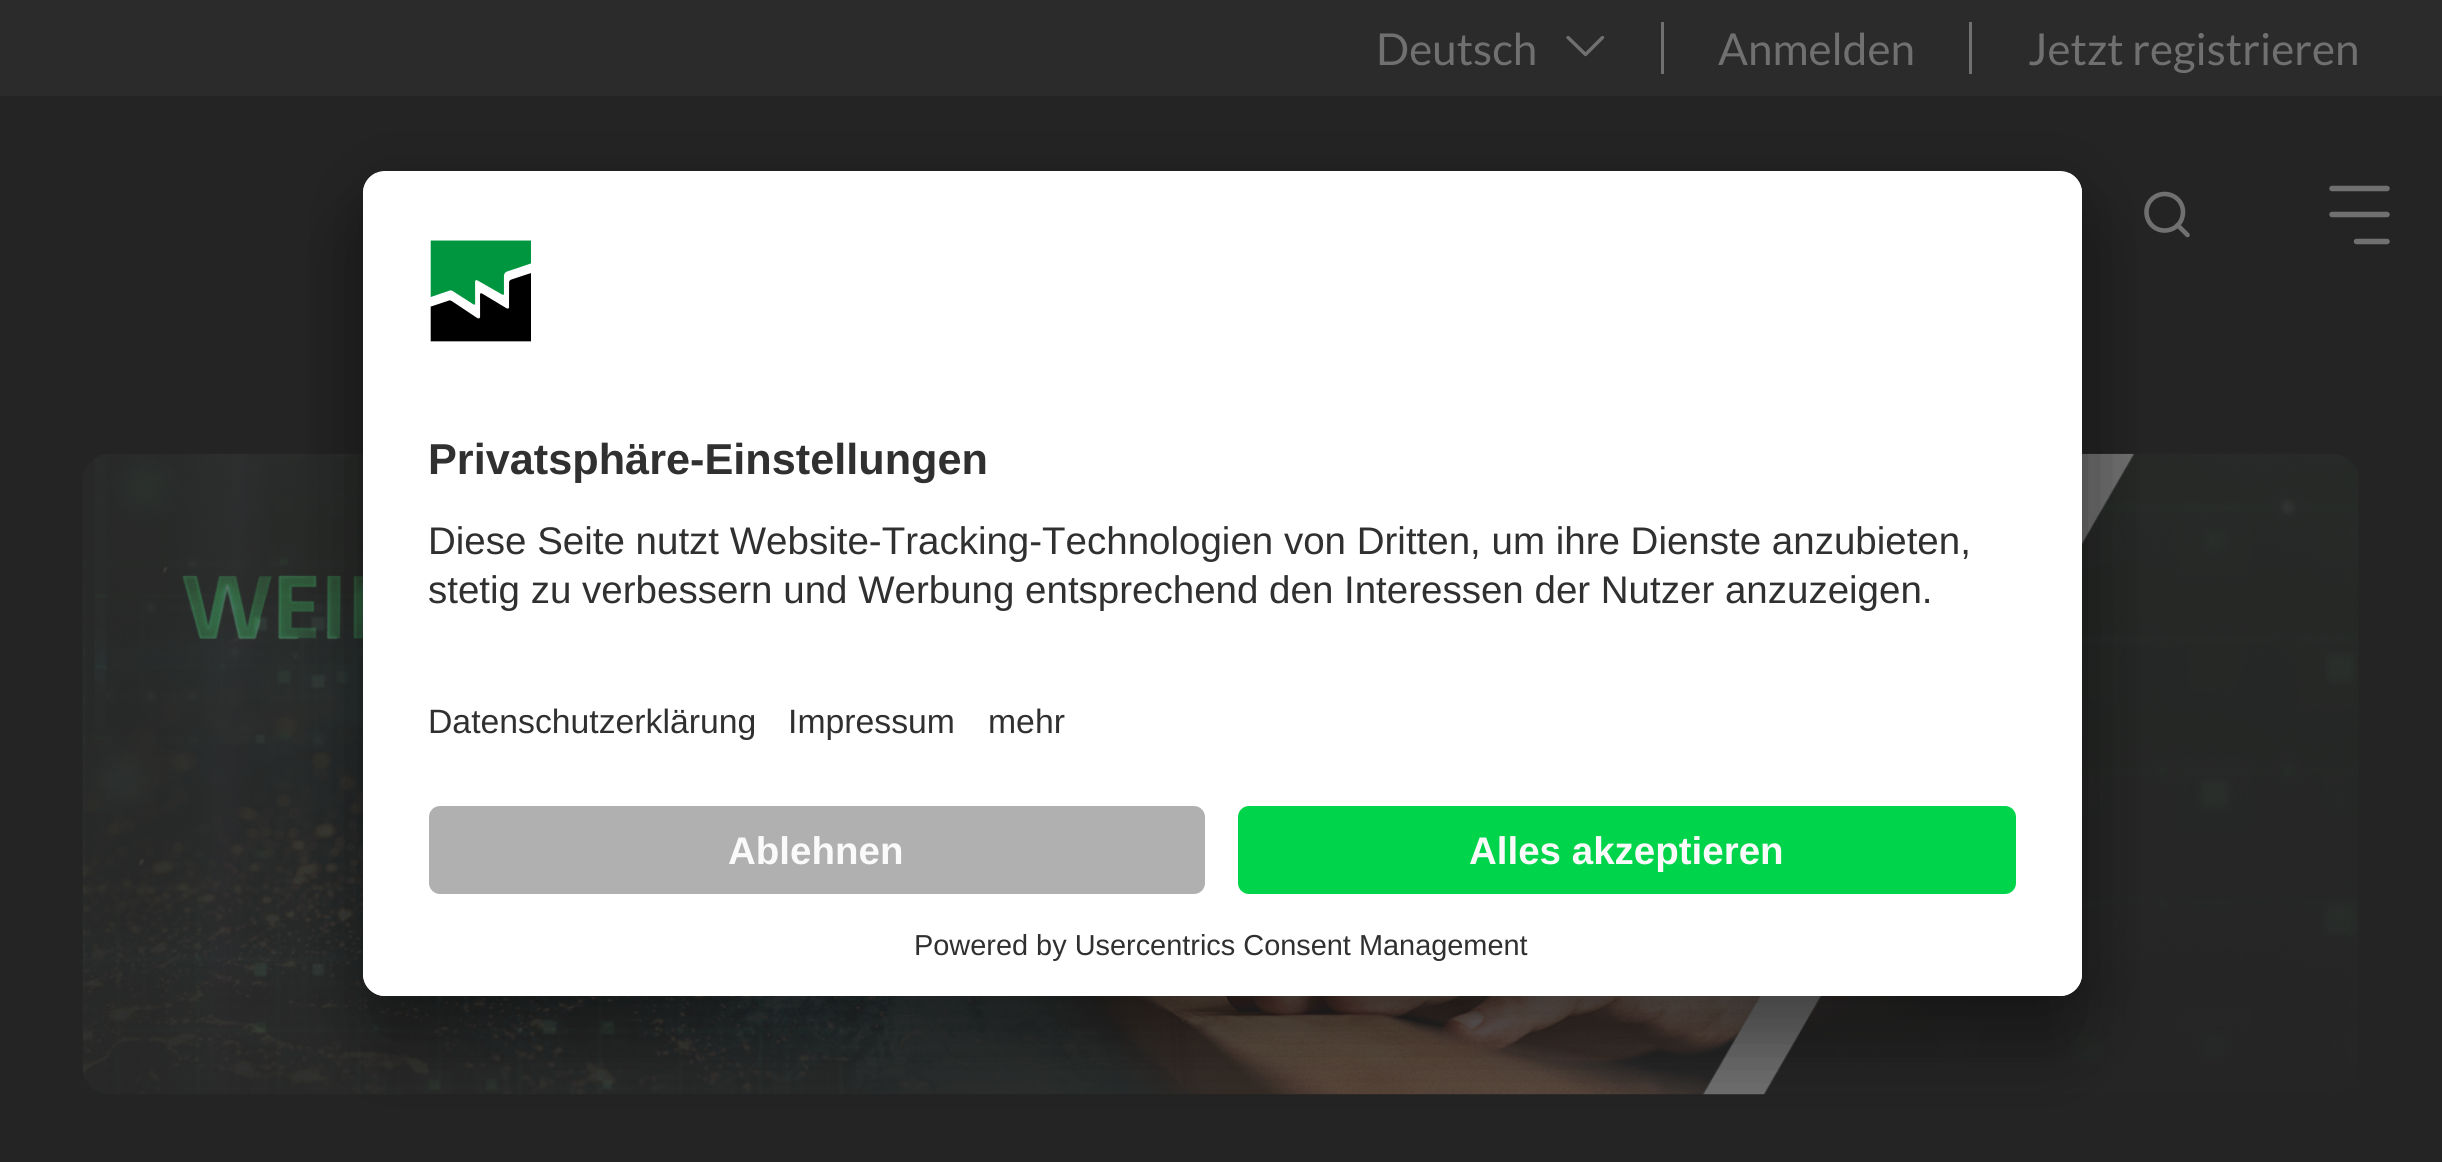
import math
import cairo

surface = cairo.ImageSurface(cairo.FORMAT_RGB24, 2442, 1162)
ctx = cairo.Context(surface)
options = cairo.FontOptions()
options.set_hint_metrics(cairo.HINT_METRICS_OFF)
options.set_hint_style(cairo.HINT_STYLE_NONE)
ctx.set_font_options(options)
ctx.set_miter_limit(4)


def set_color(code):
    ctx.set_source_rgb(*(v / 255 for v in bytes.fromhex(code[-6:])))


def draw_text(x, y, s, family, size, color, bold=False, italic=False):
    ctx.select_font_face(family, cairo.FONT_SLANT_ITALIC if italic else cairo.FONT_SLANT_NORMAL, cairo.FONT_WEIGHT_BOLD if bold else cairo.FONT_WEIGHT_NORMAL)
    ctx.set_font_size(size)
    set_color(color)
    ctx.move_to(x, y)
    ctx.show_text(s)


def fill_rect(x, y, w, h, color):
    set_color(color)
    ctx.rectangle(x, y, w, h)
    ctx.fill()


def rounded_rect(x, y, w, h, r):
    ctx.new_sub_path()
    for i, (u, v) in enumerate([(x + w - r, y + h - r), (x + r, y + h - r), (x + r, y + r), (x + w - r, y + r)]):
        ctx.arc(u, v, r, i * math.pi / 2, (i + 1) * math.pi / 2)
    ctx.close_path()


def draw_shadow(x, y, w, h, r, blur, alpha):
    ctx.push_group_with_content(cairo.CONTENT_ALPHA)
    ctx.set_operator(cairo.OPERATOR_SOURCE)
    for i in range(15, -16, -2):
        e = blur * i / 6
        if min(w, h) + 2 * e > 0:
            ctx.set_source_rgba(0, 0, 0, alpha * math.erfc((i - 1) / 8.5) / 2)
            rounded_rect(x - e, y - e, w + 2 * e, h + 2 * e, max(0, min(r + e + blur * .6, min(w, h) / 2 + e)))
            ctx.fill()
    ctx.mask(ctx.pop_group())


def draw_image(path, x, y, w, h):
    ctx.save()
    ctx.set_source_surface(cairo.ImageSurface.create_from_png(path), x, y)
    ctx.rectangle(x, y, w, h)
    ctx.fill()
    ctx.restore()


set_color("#242424")
ctx.paint()
fill_rect(0, 0, 2442, 96, "#2b2b2b")
draw_text(1376, 65, "Deutsch", "Lato", 44, "#707070")
ctx.save()
ctx.rectangle(1565, 36, 41, 22)
ctx.clip()
ctx.new_path()
ctx.move_to(1568, 37.5)
ctx.line_to(1585.5, 54.5)
ctx.line_to(1602.5, 37.5)
ctx.set_line_width(3.4)
ctx.set_line_cap(cairo.LINE_CAP_ROUND)
ctx.set_line_join(cairo.LINE_JOIN_ROUND)
ctx.stroke()
ctx.restore()
fill_rect(1661, 22, 3, 52, "#707070")
draw_text(1718, 65, "Anmelden", "Lato", 44, "#707070")
fill_rect(1969, 22, 3, 52, "#707070")
draw_text(2028, 65, "Jetzt registrieren", "Lato", 44, "#707070")
ctx.new_path()
ctx.move_to(2164.5, 230.5)
ctx.curve_to(2175, 230.5, 2183, 222.5, 2183, 212)
ctx.curve_to(2183, 202, 2175, 194, 2164.5, 194)
ctx.curve_to(2154.5, 194, 2146.5, 202, 2146.5, 212)
ctx.curve_to(2146.5, 222.5, 2154.5, 230.5, 2164.5, 230.5)
ctx.close_path()
ctx.move_to(2187.5, 235)
ctx.line_to(2177.5, 225)
ctx.set_line_width(4.6)
ctx.set_line_cap(cairo.LINE_CAP_ROUND)
ctx.set_line_join(cairo.LINE_JOIN_ROUND)
ctx.stroke()
ctx.new_path()
ctx.move_to(2332, 214.5)
ctx.line_to(2387, 214.5)
ctx.move_to(2332, 188.5)
ctx.line_to(2387, 188.5)
ctx.move_to(2356.5, 241.5)
ctx.line_to(2387, 241.5)
ctx.set_line_width(5.5)
ctx.set_line_join(cairo.LINE_JOIN_MITER)
ctx.stroke()
draw_image("assets/img2.png", 82, 453, 2277, 642)
set_color("#000000")
draw_shadow(363, 226, 1719, 825, 22, 38.5, 0.3)
draw_shadow(363, 184, 1719, 825, 22, 36, 0.22)
set_color("#ffffff")
rounded_rect(363, 171, 1719, 825, 22)
ctx.fill()
ctx.save()
rounded_rect(363, 171, 1719, 825, 22)
ctx.clip()
ctx.new_path()
ctx.move_to(385, 171)
ctx.line_to(2060, 171)
ctx.curve_to(2072, 171, 2082, 181, 2082, 193)
ctx.line_to(2082, 784)
ctx.line_to(363, 784)
ctx.line_to(363, 193)
ctx.curve_to(363, 181, 373, 171, 385, 171)
ctx.close_path()
ctx.clip()
fill_rect(363, 173, 1719, 611, "#ffffff")
ctx.restore()
draw_image("assets/img1.png", 430, 240, 101, 102)
draw_text(428, 474, "Privatsphäre-Einstellungen", "Liberation Sans", 43.25, "#303030", bold=True)
draw_text(428, 554, "Diese Seite nutzt Website-Tracking-Technologien von Dritten, um ihre Dienste anzubieten,", "Liberation Sans", 38.5, "#303030")
draw_text(428, 603, "stetig zu verbessern und Werbung entsprechend den Interessen der Nutzer anzuzeigen.", "Liberation Sans", 38.5, "#303030")
draw_text(428, 733, "Datenschutzerklärung", "Liberation Sans", 33.75, "#303030")
draw_text(788, 733, "Impressum", "Liberation Sans", 33.75, "#303030")
draw_text(988, 733, "mehr", "Liberation Sans", 33.75, "#303030")
set_color("#ffffff")
ctx.new_path()
ctx.move_to(363, 784)
ctx.line_to(2082, 784)
ctx.line_to(2082, 974)
ctx.curve_to(2082, 986, 2072, 996, 2060, 996)
ctx.line_to(385, 996)
ctx.curve_to(373, 996, 363, 986, 363, 974)
ctx.close_path()
ctx.fill()
set_color("#b0b0b0")
rounded_rect(429, 806, 776, 88, 11)
ctx.fill()
draw_text(728, 864, "Ablehnen", "Liberation Sans", 38.5, "#fafafa", bold=True)
set_color("#00d44a")
rounded_rect(1238, 806, 778, 88, 11)
ctx.fill()
draw_text(1469, 864, "Alles akzeptieren", "Liberation Sans", 38.5, "#fafafa", bold=True)
draw_text(914, 955, "Powered by Usercentrics Consent Management", "Liberation Sans", 28.9, "#303030")
surface.write_to_png("output.png")
